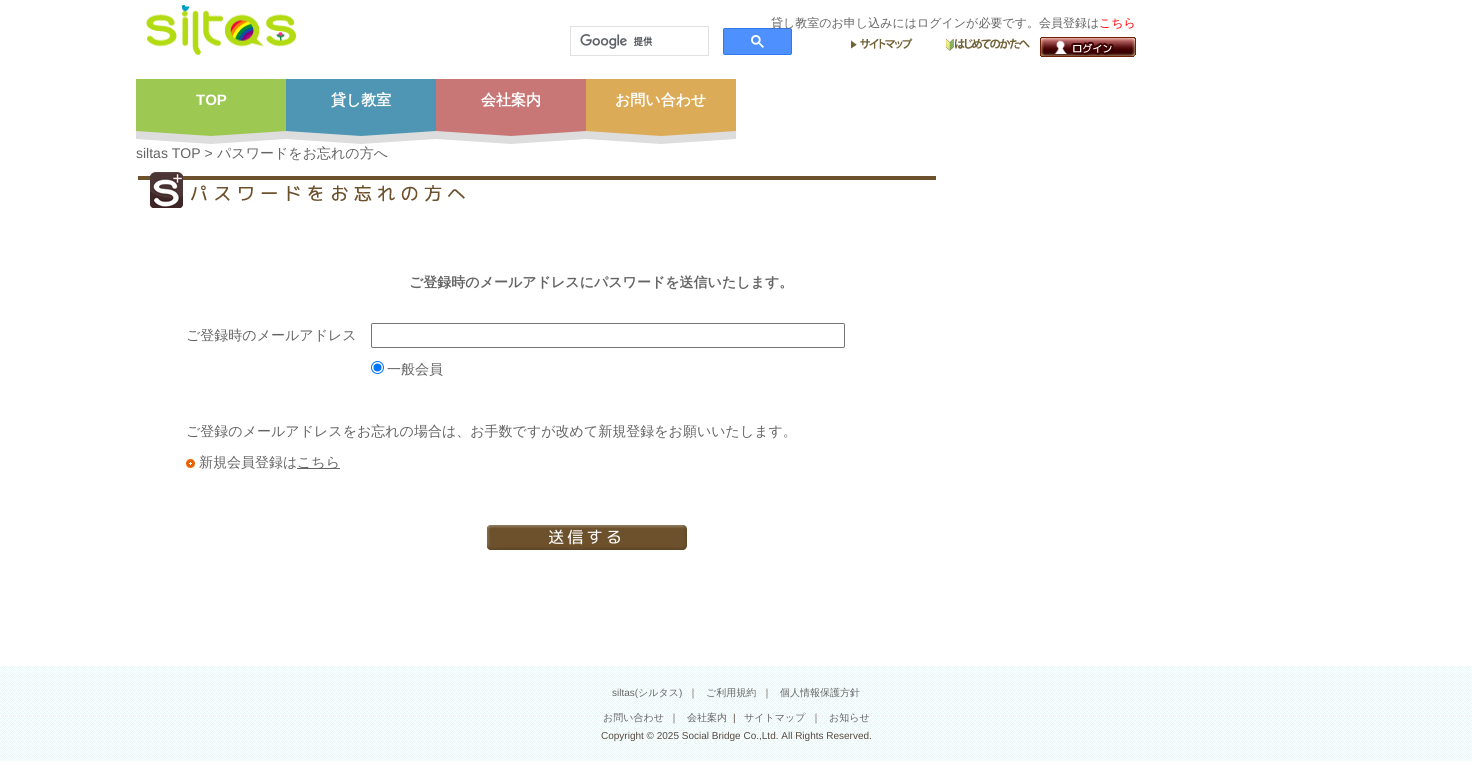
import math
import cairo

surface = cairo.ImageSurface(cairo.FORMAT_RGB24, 1472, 768)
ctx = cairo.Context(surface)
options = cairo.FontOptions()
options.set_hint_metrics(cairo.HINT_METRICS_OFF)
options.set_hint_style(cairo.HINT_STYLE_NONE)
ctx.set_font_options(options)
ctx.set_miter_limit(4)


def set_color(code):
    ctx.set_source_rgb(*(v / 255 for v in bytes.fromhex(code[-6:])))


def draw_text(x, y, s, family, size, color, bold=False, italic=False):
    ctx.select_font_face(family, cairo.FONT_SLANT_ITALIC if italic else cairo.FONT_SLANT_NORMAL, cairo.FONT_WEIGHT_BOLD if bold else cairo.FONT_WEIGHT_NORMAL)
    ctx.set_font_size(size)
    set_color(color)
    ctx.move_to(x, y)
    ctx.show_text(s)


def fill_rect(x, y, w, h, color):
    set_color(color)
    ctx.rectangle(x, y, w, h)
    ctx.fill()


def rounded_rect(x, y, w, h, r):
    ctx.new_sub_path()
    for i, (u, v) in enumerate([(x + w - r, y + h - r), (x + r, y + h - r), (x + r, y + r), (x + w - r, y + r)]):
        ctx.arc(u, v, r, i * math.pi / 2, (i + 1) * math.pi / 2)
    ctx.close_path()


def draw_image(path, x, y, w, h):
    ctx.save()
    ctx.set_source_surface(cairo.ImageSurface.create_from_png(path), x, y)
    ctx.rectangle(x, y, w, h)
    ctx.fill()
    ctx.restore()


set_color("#ffffff")
ctx.paint()
draw_image("assets/img1.png", 146, 5, 150, 50)
set_color("#4d90fe")
rounded_rect(723.5, 28.5, 68, 26, 1.5)
ctx.fill_preserve()
set_color("#3079ed")
ctx.set_line_width(1)
ctx.stroke()
draw_text(771, 27, "貸し教室のお申し込みにはログインが必要です。会員登録は", "WenQuanYi Zen Hei Medium", 12, "#646464")
draw_text(1099, 27, "こちら", "WenQuanYi Zen Hei Medium", 12, "#ff0000")
ctx.rectangle(570.5, 26.5, 138, 29)
set_color("#dfe1e5")
ctx.stroke()
draw_image("assets/img2.png", 580, 34, 73, 15)
draw_image("assets/img3.png", 751, 35, 13, 13)
draw_image("assets/img4.png", 851, 38, 62, 11)
draw_image("assets/img5.png", 946, 38, 84, 13)
draw_image("assets/img6.png", 1040, 37, 96, 20)
fill_rect(136, 79, 150, 52, "#9dc852")
draw_text(196, 105, "TOP", "Liberation Sans", 15, "#ffffff", bold=True)
fill_rect(136, 131, 600, 8, "#dddddd")
set_color("#9dc852")
ctx.new_path()
ctx.move_to(136, 131)
ctx.line_to(286, 131)
ctx.line_to(211, 136)
ctx.close_path()
ctx.fill()
set_color("#dddddd")
ctx.new_path()
ctx.move_to(136, 139)
ctx.line_to(286, 139)
ctx.line_to(211, 144)
ctx.close_path()
ctx.fill()
fill_rect(286, 79, 150, 52, "#4e96b3")
draw_text(331, 105, "貸し教室", "WenQuanYi Zen Hei", 15, "#ffffff", bold=True)
set_color("#4e96b3")
ctx.new_path()
ctx.move_to(286, 131)
ctx.line_to(436, 131)
ctx.line_to(361, 136)
ctx.close_path()
ctx.fill()
set_color("#dddddd")
ctx.new_path()
ctx.move_to(286, 139)
ctx.line_to(436, 139)
ctx.line_to(361, 144)
ctx.close_path()
ctx.fill()
fill_rect(436, 79, 150, 52, "#c97676")
draw_text(481, 105, "会社案内", "WenQuanYi Zen Hei", 15, "#ffffff", bold=True)
set_color("#c97676")
ctx.new_path()
ctx.move_to(436, 131)
ctx.line_to(586, 131)
ctx.line_to(511, 136)
ctx.close_path()
ctx.fill()
set_color("#dddddd")
ctx.new_path()
ctx.move_to(436, 139)
ctx.line_to(586, 139)
ctx.line_to(511, 144)
ctx.close_path()
ctx.fill()
fill_rect(586, 79, 150, 52, "#dbab58")
draw_text(615, 105, "お問い合わせ", "WenQuanYi Zen Hei", 15, "#ffffff", bold=True)
set_color("#dbab58")
ctx.new_path()
ctx.move_to(586, 131)
ctx.line_to(736, 131)
ctx.line_to(661, 136)
ctx.close_path()
ctx.fill()
set_color("#dddddd")
ctx.new_path()
ctx.move_to(586, 139)
ctx.line_to(736, 139)
ctx.line_to(661, 144)
ctx.close_path()
ctx.fill()
draw_text(136, 158, "siltas TOP >", "Liberation Sans", 14, "#646464")
draw_text(217, 158, "パスワードをお忘れの方へ", "WenQuanYi Zen Hei Medium", 14, "#646464")
draw_image("assets/img7.png", 138, 172, 798, 36)
draw_text(409, 287, "ご登録時のメールアドレスにパスワードを送信いたします。", "WenQuanYi Zen Hei", 14, "#646464", bold=True)
draw_text(186, 340, "ご登録時のメールアドレス", "WenQuanYi Zen Hei Medium", 14, "#646464")
rounded_rect(371.5, 323.5, 473, 24, 1.5)
set_color("#767676")
ctx.stroke()
ctx.arc(377.5, 367.5, 6, 0, 2 * math.pi)
set_color("#0075ff")
ctx.stroke()
ctx.arc(377.5, 367.5, 4, 0, 2 * math.pi)
ctx.fill()
draw_text(387, 374, "一般会員", "WenQuanYi Zen Hei Medium", 14, "#646464")
draw_text(186, 436, "ご登録のメールアドレスをお忘れの場合は、お手数ですが改めて新規登録をお願いいたします。", "WenQuanYi Zen Hei Medium", 14, "#646464")
draw_image("assets/img8.png", 186, 459, 9, 9)
draw_text(199, 467, "新規会員登録は", "WenQuanYi Zen Hei Medium", 14, "#646464")
fill_rect(297, 468, 43, 1, "#646464")
draw_text(297, 467, "こちら", "WenQuanYi Zen Hei Medium", 14, "#646464")
draw_image("assets/img9.png", 487, 525, 200, 25)
draw_image("assets/img10.png", 0, 666, 1472, 95)
draw_text(612, 696, "siltas(", "Liberation Sans", 10, "#646464")
draw_text(638, 696, "シルタス", "WenQuanYi Zen Hei Medium", 10, "#646464")
draw_text(679, 696, ")", "Liberation Sans", 10, "#646464")
draw_text(688, 696, "｜", "WenQuanYi Zen Hei Medium", 10, "#564940")
draw_text(706, 696, "ご利用規約", "WenQuanYi Zen Hei Medium", 10, "#646464")
draw_text(762, 696, "｜", "WenQuanYi Zen Hei Medium", 10, "#564940")
draw_text(780, 696, "個人情報保護方針", "WenQuanYi Zen Hei Medium", 10, "#646464")
draw_text(603, 721, "お問い合わせ", "WenQuanYi Zen Hei Medium", 10, "#646464")
draw_text(669, 721, "｜", "WenQuanYi Zen Hei Medium", 10, "#564940")
draw_text(687, 721, "会社案内", "WenQuanYi Zen Hei Medium", 10, "#646464")
draw_text(733, 721, "|", "Liberation Sans", 10, "#564940")
draw_text(744, 721, "サイトマップ", "WenQuanYi Zen Hei Medium", 10, "#646464")
draw_text(811, 721, "｜", "WenQuanYi Zen Hei Medium", 10, "#564940")
draw_text(829, 721, "お知らせ", "WenQuanYi Zen Hei Medium", 10, "#646464")
draw_text(601, 739, "Copyright © 2025 Social Bridge Co.,Ltd. All Rights Reserved.", "Liberation Sans", 10, "#564940")
surface.write_to_png("output.png")
